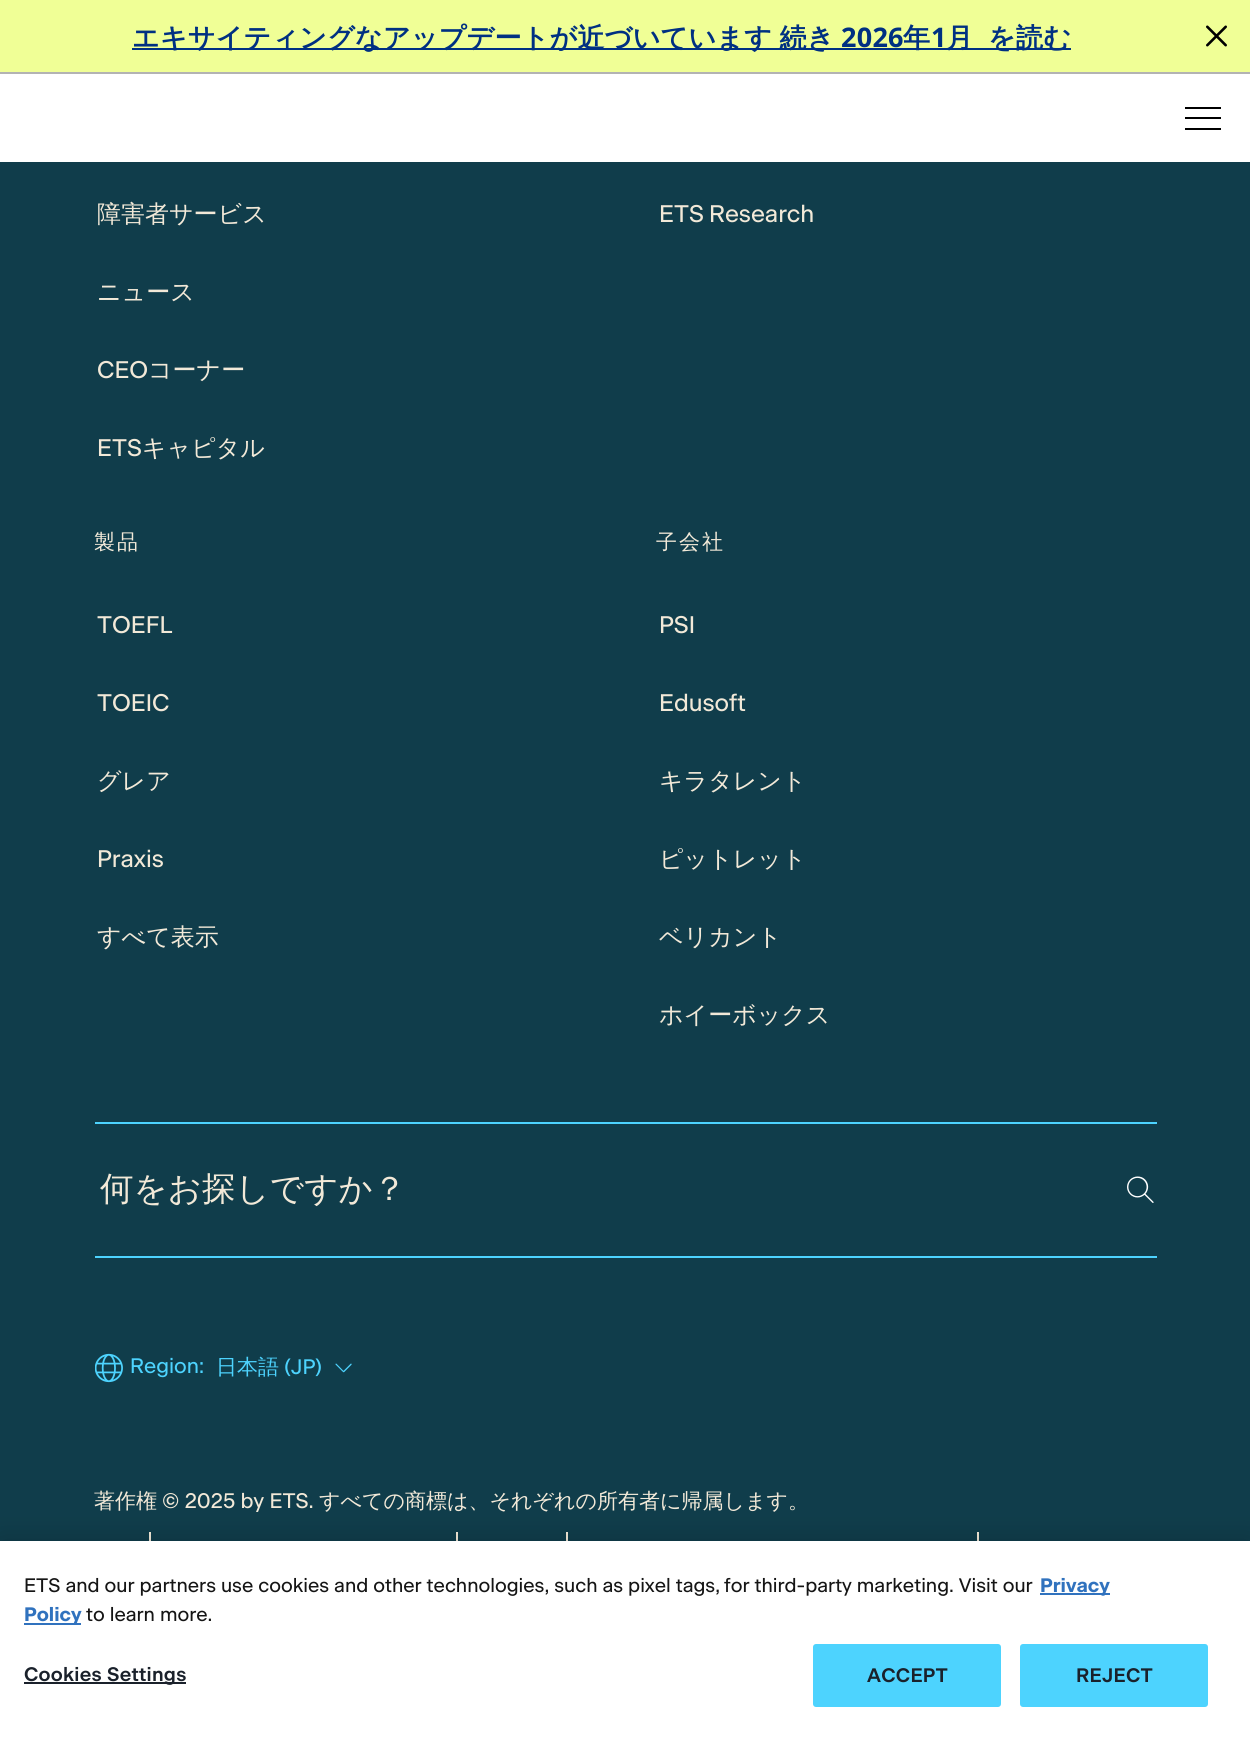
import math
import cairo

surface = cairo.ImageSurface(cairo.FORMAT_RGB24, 1250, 1737)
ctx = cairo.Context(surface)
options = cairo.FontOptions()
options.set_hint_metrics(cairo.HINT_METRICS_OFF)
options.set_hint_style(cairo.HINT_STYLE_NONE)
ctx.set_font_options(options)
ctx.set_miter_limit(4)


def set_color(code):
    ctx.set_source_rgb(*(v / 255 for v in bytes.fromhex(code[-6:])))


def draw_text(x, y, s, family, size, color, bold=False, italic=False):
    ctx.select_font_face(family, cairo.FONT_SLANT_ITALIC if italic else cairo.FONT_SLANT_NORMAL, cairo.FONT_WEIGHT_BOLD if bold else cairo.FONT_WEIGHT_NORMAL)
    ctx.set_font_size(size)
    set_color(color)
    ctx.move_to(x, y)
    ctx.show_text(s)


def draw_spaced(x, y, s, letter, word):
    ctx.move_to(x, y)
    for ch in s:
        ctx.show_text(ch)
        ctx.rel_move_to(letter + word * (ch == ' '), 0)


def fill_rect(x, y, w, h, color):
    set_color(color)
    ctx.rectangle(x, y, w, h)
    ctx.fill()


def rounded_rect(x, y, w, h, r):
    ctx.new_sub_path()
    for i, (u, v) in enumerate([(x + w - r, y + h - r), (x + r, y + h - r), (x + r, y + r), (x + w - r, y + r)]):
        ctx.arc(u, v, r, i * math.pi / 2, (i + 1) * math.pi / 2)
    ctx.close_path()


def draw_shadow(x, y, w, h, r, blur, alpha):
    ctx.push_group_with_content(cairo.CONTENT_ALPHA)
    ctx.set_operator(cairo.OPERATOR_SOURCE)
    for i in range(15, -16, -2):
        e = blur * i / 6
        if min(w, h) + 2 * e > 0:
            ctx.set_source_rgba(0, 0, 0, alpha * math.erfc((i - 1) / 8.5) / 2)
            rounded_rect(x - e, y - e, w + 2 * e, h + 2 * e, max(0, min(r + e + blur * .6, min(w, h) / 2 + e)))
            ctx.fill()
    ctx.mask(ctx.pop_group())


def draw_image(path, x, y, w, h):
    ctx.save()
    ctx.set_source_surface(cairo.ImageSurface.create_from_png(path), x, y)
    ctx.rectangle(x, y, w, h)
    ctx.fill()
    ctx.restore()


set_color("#103d4b")
ctx.paint()
fill_rect(0, 0, 1250, 72, "#f0ff96")
fill_rect(132, 48, 939, 2, "#003082")
ctx.select_font_face("WenQuanYi Zen Hei", cairo.FONT_SLANT_NORMAL, cairo.FONT_WEIGHT_BOLD)
ctx.set_font_size(27)
draw_spaced(132, 47, "エキサイティングなアップデートが近づいています 続き", 0.25, -1)
ctx.select_font_face("Noto Sans", cairo.FONT_SLANT_NORMAL, cairo.FONT_WEIGHT_BOLD)
draw_spaced(841, 47, "2026", 0.25, 0)
ctx.select_font_face("WenQuanYi Zen Hei", cairo.FONT_SLANT_NORMAL, cairo.FONT_WEIGHT_BOLD)
draw_spaced(903, 47, "年", 0.25, 0)
ctx.select_font_face("Noto Sans", cairo.FONT_SLANT_NORMAL, cairo.FONT_WEIGHT_BOLD)
draw_spaced(931, 47, "1", 0.25, 0)
ctx.select_font_face("WenQuanYi Zen Hei", cairo.FONT_SLANT_NORMAL, cairo.FONT_WEIGHT_BOLD)
draw_spaced(946, 47, "月", 0.25, 0)
draw_spaced(988, 47, "を読む", 0.25, 0)
draw_image("assets/img1.png", 1206, 25, 21, 22)
fill_rect(0, 74, 1250, 88, "#ffffff")
fill_rect(0, 72, 1250, 2, "#b3b3b3")
fill_rect(1185, 107, 36, 2, "#000000")
fill_rect(1185, 117, 36, 2, "#000000")
fill_rect(1185, 128, 36, 2, "#000000")
draw_text(97, 222, "障害者サービス", "WenQuanYi Zen Hei Medium", 24, "#f2e9d8")
draw_text(97, 300, "ニュース", "WenQuanYi Zen Hei Medium", 24, "#f2e9d8")
draw_text(97, 378, "CEO", "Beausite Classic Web", 24, "#f2e9d8")
draw_text(148, 378, "コーナー", "WenQuanYi Zen Hei Medium", 24, "#f2e9d8")
draw_text(97, 456, "ETS", "Beausite Classic Web", 24, "#f2e9d8")
draw_text(142, 456, "キャピタル", "WenQuanYi Zen Hei Medium", 24, "#f2e9d8")
ctx.select_font_face("Beausite Classic Web")
draw_spaced(659, 222, "ETS Research", 0, -1)
ctx.select_font_face("WenQuanYi Zen Hei Medium")
ctx.set_font_size(21)
draw_spaced(94, 549, "製品", 2, 0)
draw_text(97, 633, "TOEFL", "Beausite Classic Web", 24, "#f2e9d8")
draw_text(97, 711, "TOEIC", "Beausite Classic Web", 24, "#f2e9d8")
draw_text(97, 789, "グレア", "WenQuanYi Zen Hei Medium", 24, "#f2e9d8")
draw_text(97, 867, "Praxis", "Beausite Classic Web", 24, "#f2e9d8")
draw_text(97, 945, "すべて表示", "WenQuanYi Zen Hei Medium", 24, "#f2e9d8")
ctx.set_font_size(21)
draw_spaced(656, 549, "子会社", 2, 0)
draw_text(659, 633, "PSI", "Beausite Classic Web", 24, "#f2e9d8")
draw_text(659, 711, "Edusoft", "Beausite Classic Web", 24, "#f2e9d8")
draw_text(659, 789, "キラタレント", "WenQuanYi Zen Hei Medium", 24, "#f2e9d8")
draw_text(659, 867, "ピットレット", "WenQuanYi Zen Hei Medium", 24, "#f2e9d8")
draw_text(659, 945, "ベリカント", "WenQuanYi Zen Hei Medium", 24, "#f2e9d8")
draw_text(659, 1023, "ホイーボックス", "WenQuanYi Zen Hei Medium", 24, "#f2e9d8")
fill_rect(95, 1122, 1062, 2, "#4dd3fe")
fill_rect(95, 1256, 1062, 2, "#4dd3fe")
draw_text(100, 1200, "何をお探しですか？", "WenQuanYi Zen Hei Medium", 33.5, "#f2e9d8")
draw_image("assets/img2.png", 1127, 1176, 27, 27)
draw_image("assets/img3.png", 95, 1353, 28, 30)
draw_text(130, 1373, "Region:", "Beausite Classic Web", 21, "#4dd3fe")
draw_text(216, 1374, "日本語", "WenQuanYi Zen Hei Medium", 21, "#4dd3fe")
draw_text(284, 1374, "(JP)", "Beausite Classic Web", 21, "#4dd3fe")
draw_image("assets/img4.png", 335, 1363, 17, 10)
draw_text(94, 1508, "著作権", "WenQuanYi Zen Hei Medium", 21, "#f2e9d8")
draw_text(162, 1508, "© 2025 by ETS.", "Beausite Classic Web", 21, "#f2e9d8")
draw_text(319, 1508, "すべての商標は、それぞれの所有者に帰属します。", "WenQuanYi Zen Hei Medium", 21, "#f2e9d8")
fill_rect(149, 1532, 2, 9, "#f2e9d8")
fill_rect(456, 1532, 2, 9, "#f2e9d8")
fill_rect(566, 1532, 2, 9, "#f2e9d8")
fill_rect(977, 1532, 2, 9, "#f2e9d8")
set_color("#000000")
draw_shadow(0, 1541, 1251, 196, 0, 13.5, 0.2)
fill_rect(0, 1541, 1250, 196, "#ffffff")
draw_text(24, 1592, "ETS and our partners use cookies and other technologies, such as pixel tags,", "Beausite Classic Web", 19.5, "#151515")
draw_text(724, 1592, "for third-party marketing. Visit our", "Beausite Classic Web", 19.5, "#151515")
fill_rect(1040, 1593, 70, 2, "#3072be")
draw_text(1040, 1592, "Privacy", "Beausite Classic Web", 19.5, "#3072be", bold=True)
fill_rect(24, 1623, 57, 2, "#3072be")
draw_text(24, 1621, "Policy", "Beausite Classic Web", 19.5, "#3072be", bold=True)
draw_text(86, 1621, "to learn more.", "Beausite Classic Web", 19.5, "#151515")
fill_rect(24, 1682, 162, 2, "#1a212b")
ctx.select_font_face("Beausite Classic Web SemiBold")
draw_spaced(24, 1681, "Cookies Settings", 0.25, 0)
set_color("#4dd3fe")
rounded_rect(814, 1645, 186, 61, 2)
ctx.fill_preserve()
ctx.stroke()
set_color("#1a212b")
draw_spaced(867, 1682, "ACCEPT", 0.25, 0)
set_color("#4dd3fe")
rounded_rect(1021, 1645, 186, 61, 2)
ctx.fill_preserve()
ctx.stroke()
set_color("#1a212b")
draw_spaced(1076, 1682, "REJECT", 0.25, 0)
surface.write_to_png("output.png")
